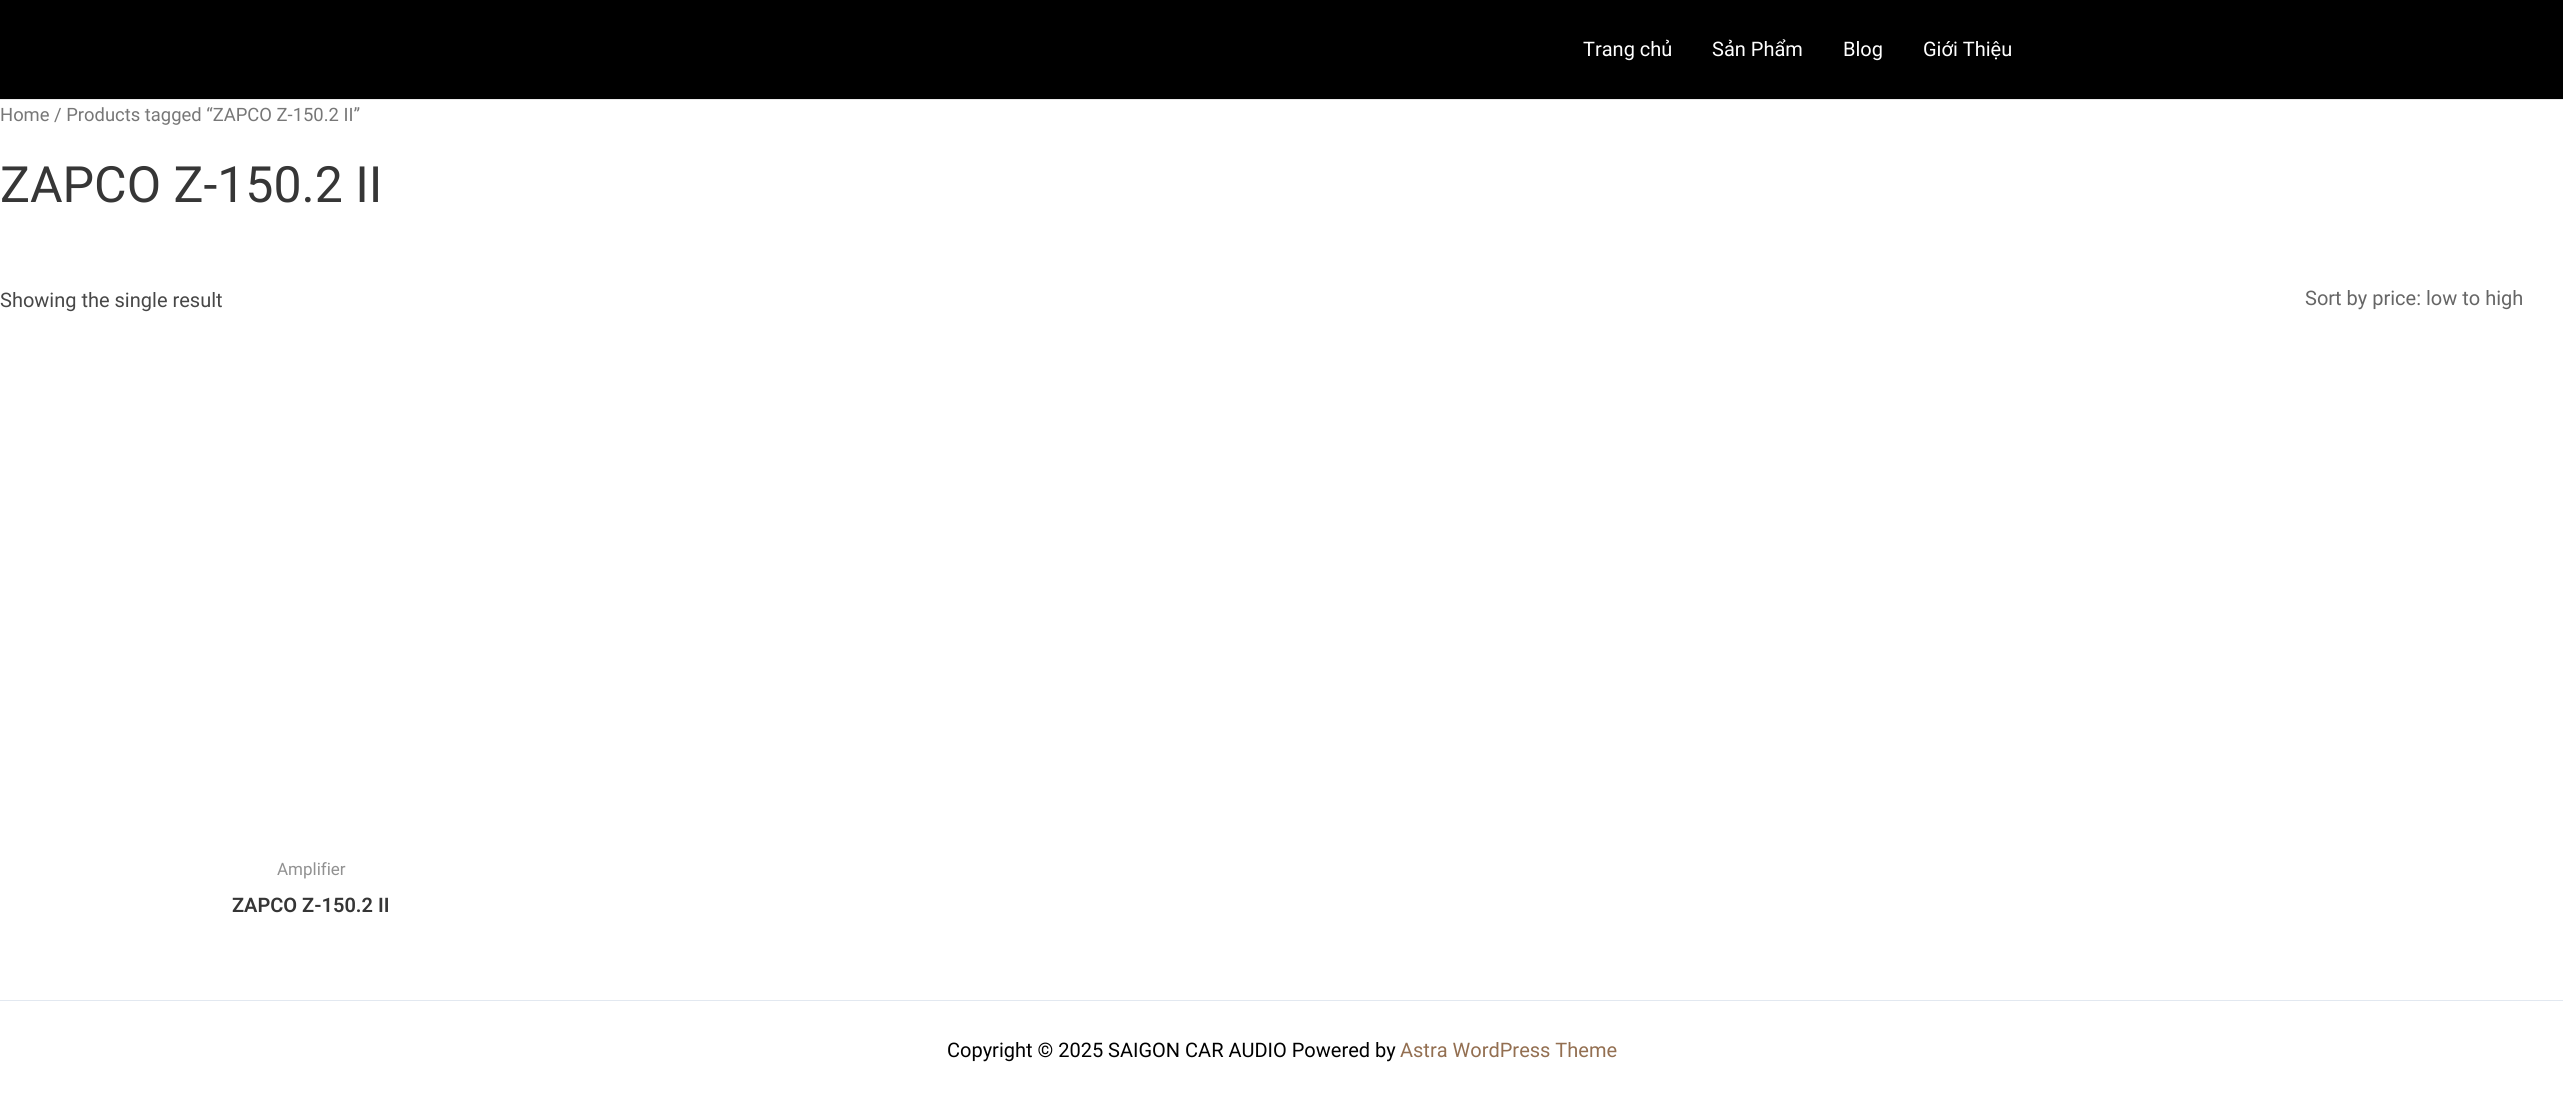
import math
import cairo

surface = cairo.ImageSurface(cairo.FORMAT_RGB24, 2563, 1099)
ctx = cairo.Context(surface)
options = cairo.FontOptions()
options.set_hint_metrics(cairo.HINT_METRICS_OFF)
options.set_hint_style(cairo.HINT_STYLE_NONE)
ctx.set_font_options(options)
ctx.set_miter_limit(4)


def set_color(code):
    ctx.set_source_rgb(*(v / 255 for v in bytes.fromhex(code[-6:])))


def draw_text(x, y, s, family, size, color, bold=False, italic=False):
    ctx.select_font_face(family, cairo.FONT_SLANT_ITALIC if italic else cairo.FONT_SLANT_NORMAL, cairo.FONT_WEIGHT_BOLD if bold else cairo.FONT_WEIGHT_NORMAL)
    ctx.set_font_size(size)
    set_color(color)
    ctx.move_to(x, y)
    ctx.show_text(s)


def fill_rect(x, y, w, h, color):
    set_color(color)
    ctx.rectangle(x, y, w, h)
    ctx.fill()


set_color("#ffffff")
ctx.paint()
fill_rect(0, 0, 2563, 99, "#000000")
fill_rect(0, 99, 2563, 1, "#eaeaea")
draw_text(1583, 56, "Trang chủ", "Roboto", 20, "#ffffff")
draw_text(1712, 56, "Sản Phẩm", "Roboto", 20, "#ffffff")
draw_text(1843, 56, "Blog", "Roboto", 20, "#ffffff")
draw_text(1923, 56, "Giới Thiệu", "Roboto", 20, "#ffffff")
draw_text(0, 121, "Home / Products tagged “ZAPCO Z-150.2 II”", "Roboto", 18.4, "#777777")
draw_text(0, 202, "ZAPCO Z-150.2 II", "Roboto", 50, "#363636")
draw_text(0, 307, "Showing the single result", "Roboto", 20, "#474747")
draw_text(2305, 305, "Sort by price: low to high", "Roboto", 20, "#666666")
draw_text(277, 875, "Amplifier", "Roboto", 17, "#919191")
draw_text(232, 912, "ZAPCO Z-150.2 II", "Roboto SemiBold", 20, "#363636")
fill_rect(0, 1000, 2563, 1, "#e2e8f0")
draw_text(947, 1057, "Copyright © 2025 SAIGON CAR AUDIO Powered by", "Roboto", 20, "#000000")
draw_text(1400, 1057, "Astra WordPress Theme", "Roboto", 20, "#936f51")
surface.write_to_png("output.png")
